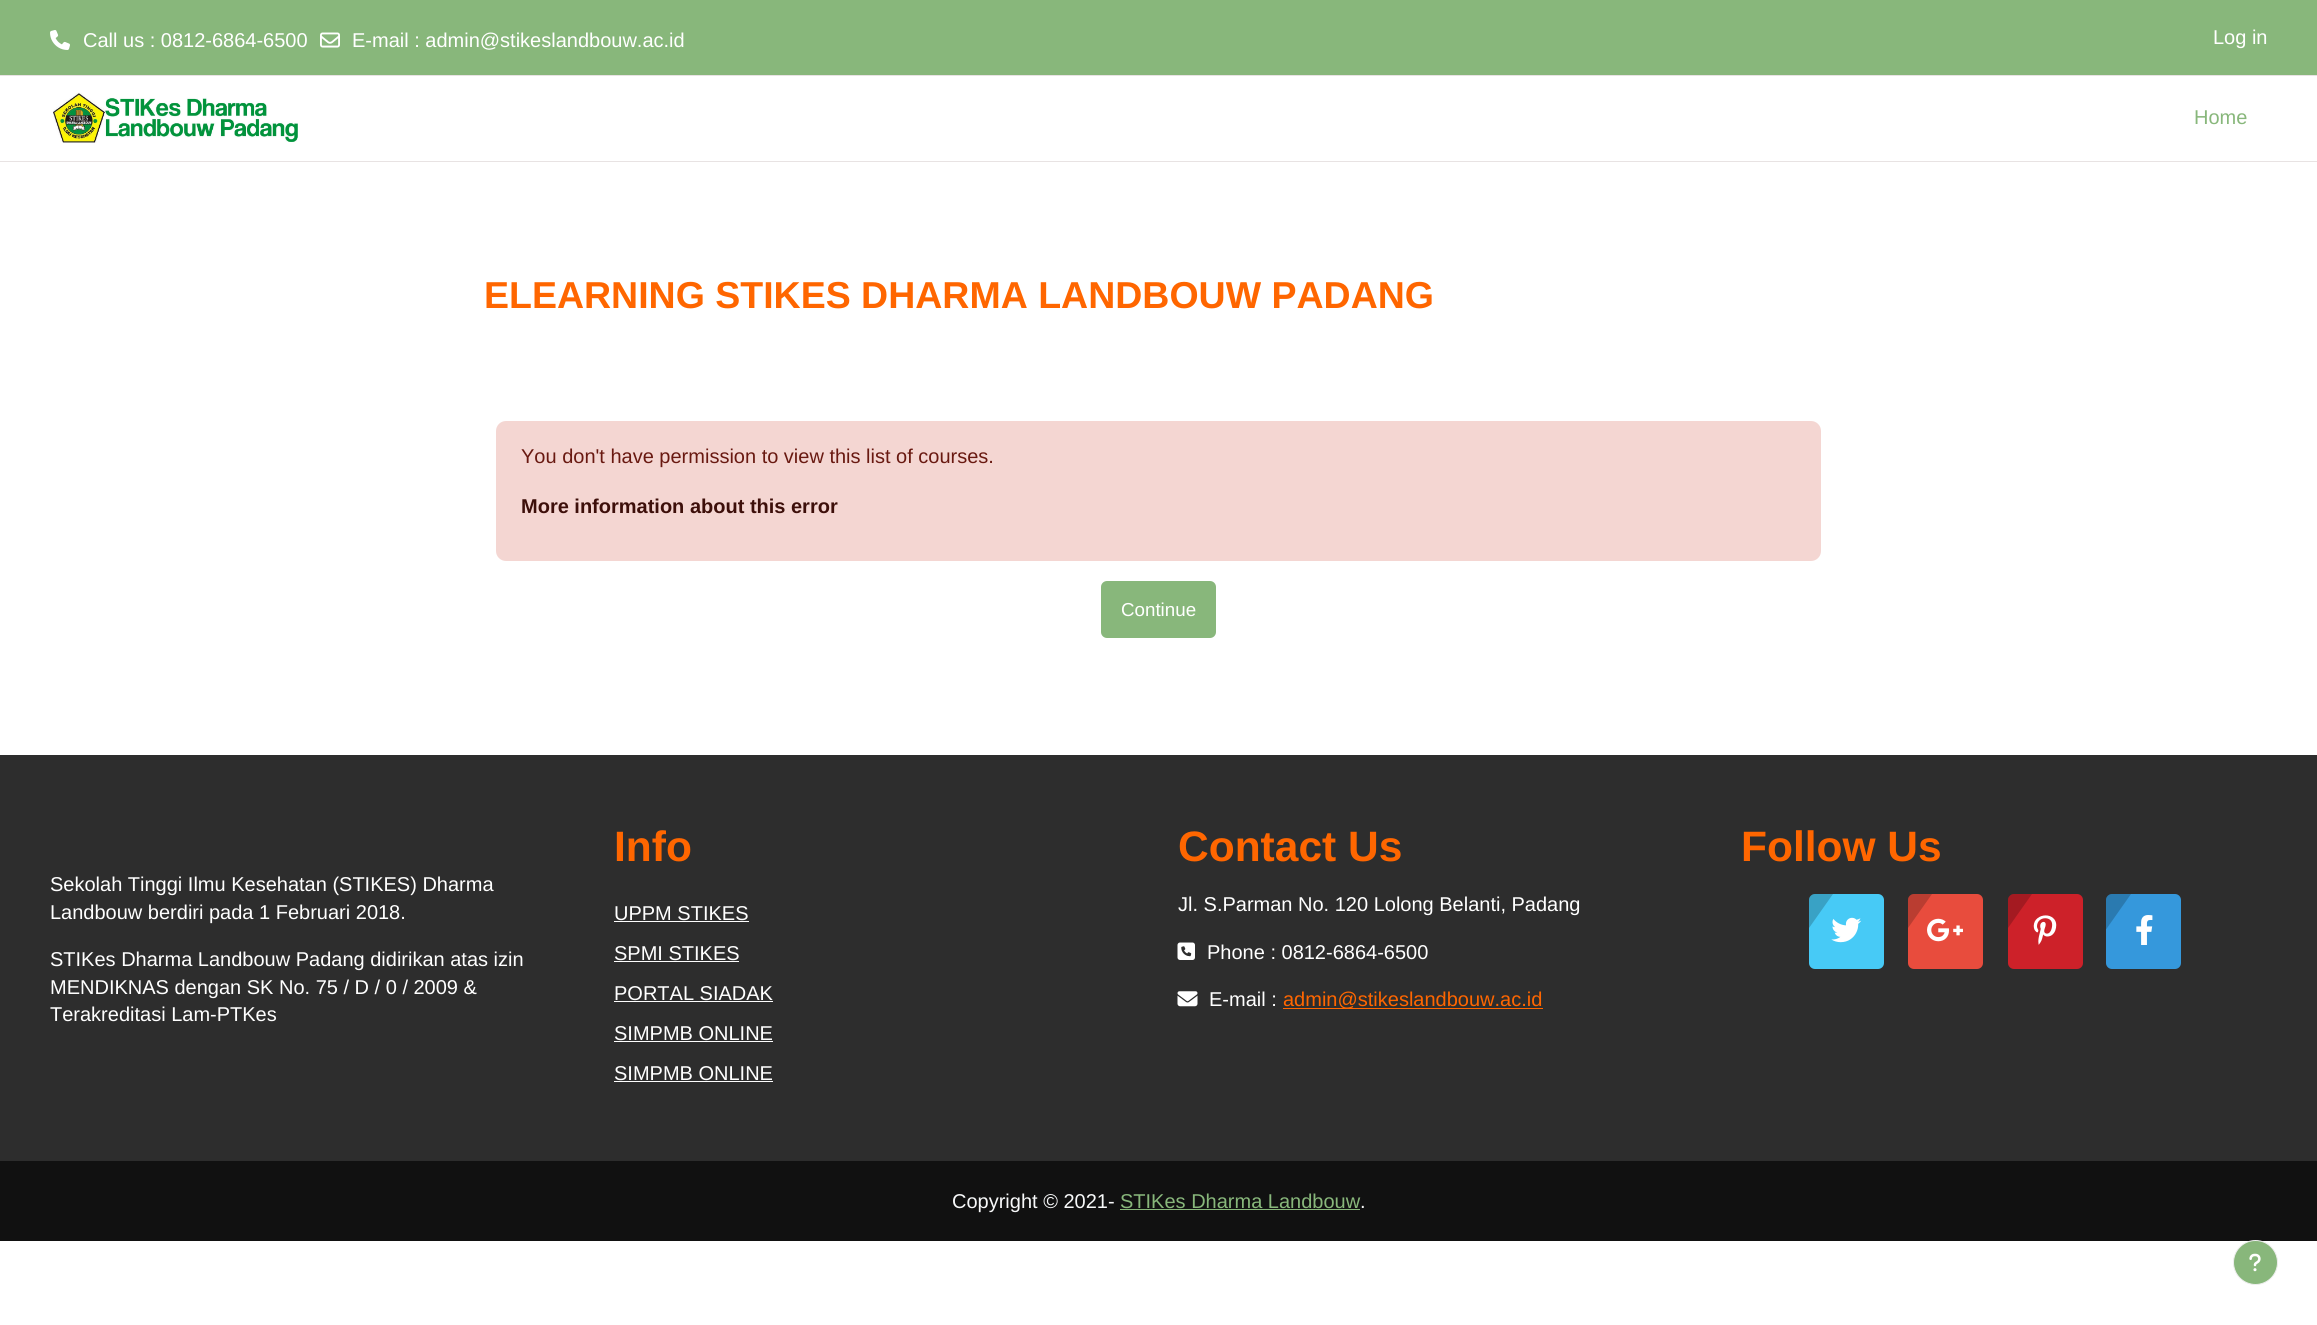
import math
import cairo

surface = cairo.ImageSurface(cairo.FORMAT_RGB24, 2317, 1325)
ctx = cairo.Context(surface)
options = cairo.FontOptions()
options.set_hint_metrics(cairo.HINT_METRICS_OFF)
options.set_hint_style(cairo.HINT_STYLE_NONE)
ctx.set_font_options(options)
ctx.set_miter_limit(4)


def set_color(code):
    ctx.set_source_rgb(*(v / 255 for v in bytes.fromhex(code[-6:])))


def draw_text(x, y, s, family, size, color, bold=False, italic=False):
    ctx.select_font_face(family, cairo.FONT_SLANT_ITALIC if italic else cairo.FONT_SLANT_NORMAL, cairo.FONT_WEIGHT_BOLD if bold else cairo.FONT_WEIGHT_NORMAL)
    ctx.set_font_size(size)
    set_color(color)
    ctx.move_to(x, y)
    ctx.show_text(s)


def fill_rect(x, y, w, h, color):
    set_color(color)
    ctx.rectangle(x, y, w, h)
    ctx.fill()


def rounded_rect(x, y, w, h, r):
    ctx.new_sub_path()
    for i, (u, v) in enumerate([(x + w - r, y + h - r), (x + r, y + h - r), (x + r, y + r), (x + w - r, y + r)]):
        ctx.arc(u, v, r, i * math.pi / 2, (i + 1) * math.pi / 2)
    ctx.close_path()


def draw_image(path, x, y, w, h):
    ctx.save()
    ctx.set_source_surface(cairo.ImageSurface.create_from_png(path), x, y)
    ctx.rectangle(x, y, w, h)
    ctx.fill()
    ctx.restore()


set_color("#ffffff")
ctx.paint()
fill_rect(0, 0, 2317, 75, "#88b77b")
fill_rect(0, 75, 2317, 1, "#e8e3e3")
draw_image("assets/img1.png", 50, 30, 20, 20)
draw_text(83, 47, "Call us : 0812-6864-6500", "Liberation Sans", 20, "#ffffff")
draw_image("assets/img2.png", 320, 32, 20, 16)
draw_text(352, 47, "E-mail : admin@stikeslandbouw.ac.id", "Liberation Sans", 20, "#ffffff")
draw_text(2213, 44, "Log in", "Liberation Sans", 20, "#ffffff")
fill_rect(0, 161, 2317, 1, "#e8e3e3")
draw_image("assets/img3.png", 53, 92, 245, 51)
draw_text(2194, 124, "Home", "Liberation Sans", 20, "#88b77b")
draw_text(484, 308, "ELEARNING STIKES DHARMA LANDBOUW PADANG", "Liberation Sans", 37.5, "#ff6600", bold=True)
set_color("#f4d6d2")
rounded_rect(496, 421, 1325, 140, 10)
ctx.fill()
draw_text(521, 463, "You don't have permission to view this list of courses.", "Liberation Sans", 20, "#691911")
draw_text(521, 513, "More information about this error", "Liberation Sans", 20, "#3d0f0a", bold=True)
set_color("#88b77b")
rounded_rect(1101, 581, 115, 57, 6)
ctx.fill()
draw_text(1121, 616, "Continue", "Liberation Sans", 18.75, "#ffffff")
fill_rect(0, 755, 2317, 406, "#2d2d2d")
draw_text(50, 891, "Sekolah Tinggi Ilmu Kesehatan (STIKES) Dharma", "Liberation Sans", 20, "#ffffff")
draw_text(50, 919, "Landbouw berdiri pada 1 Februari 2018.", "Liberation Sans", 20, "#ffffff")
draw_text(50, 966, "STIKes Dharma Landbouw Padang didirikan atas izin", "Liberation Sans", 20, "#ffffff")
draw_text(50, 994, "MENDIKNAS dengan SK No. 75 / D / 0 / 2009 &", "Liberation Sans", 20, "#ffffff")
draw_text(50, 1021, "Terakreditasi Lam-PTKes", "Liberation Sans", 20, "#ffffff")
draw_text(614, 861, "Info", "Liberation Sans", 42.5, "#ff6600", bold=True)
draw_text(614, 920, "UPPM STIKES", "Liberation Sans", 20, "#ffffff")
fill_rect(614, 921, 135, 1, "#ffffff")
draw_text(614, 960, "SPMI STIKES", "Liberation Sans", 20, "#ffffff")
fill_rect(614, 961, 125, 1, "#ffffff")
draw_text(614, 1000, "PORTAL SIADAK", "Liberation Sans", 20, "#ffffff")
fill_rect(614, 1001, 159, 1, "#ffffff")
draw_text(614, 1040, "SIMPMB ONLINE", "Liberation Sans", 20, "#ffffff")
fill_rect(614, 1041, 159, 1, "#ffffff")
draw_text(614, 1080, "SIMPMB ONLINE", "Liberation Sans", 20, "#ffffff")
fill_rect(614, 1081, 159, 1, "#ffffff")
draw_text(1178, 861, "Contact Us", "Liberation Sans", 42.5, "#ff6600", bold=True)
draw_text(1178, 911, "Jl. S.Parman No. 120 Lolong Belanti, Padang", "Liberation Sans", 20, "#ffffff")
draw_image("assets/img4.png", 1177, 942, 18, 18)
draw_text(1207, 959, "Phone : 0812-6864-6500", "Liberation Sans", 20, "#ffffff")
draw_image("assets/img5.png", 1177, 991, 21, 16)
draw_text(1209, 1006, "E-mail :", "Liberation Sans", 20, "#ffffff")
fill_rect(1283, 1008, 260, 1, "#ff6600")
draw_text(1283, 1006, "admin@stikeslandbouw.ac.id", "Liberation Sans", 20, "#ff6600")
draw_text(1741, 861, "Follow Us", "Liberation Sans", 42.5, "#ff6600", bold=True)
set_color("#47caf6")
rounded_rect(1809, 894, 75, 75, 6)
ctx.fill()
draw_image("assets/img6.png", 1831, 917, 31, 26)
ctx.set_source_rgba(0, 0, 0, 0.2)
ctx.new_path()
ctx.move_to(1815, 894)
ctx.line_to(1833, 894)
ctx.line_to(1809, 928)
ctx.line_to(1809, 900)
ctx.curve_to(1809, 896.5, 1811.5, 894, 1815, 894)
ctx.close_path()
ctx.fill()
set_color("#e84c3d")
rounded_rect(1908, 894, 75, 75, 6)
ctx.fill()
draw_image("assets/img7.png", 1927, 918, 36, 24)
ctx.set_source_rgba(0, 0, 0, 0.2)
ctx.new_path()
ctx.move_to(1914, 894)
ctx.line_to(1932, 894)
ctx.line_to(1908, 928)
ctx.line_to(1908, 900)
ctx.curve_to(1908, 896.5, 1910.5, 894, 1914, 894)
ctx.close_path()
ctx.fill()
set_color("#cd2129")
rounded_rect(2008, 894, 75, 75, 6)
ctx.fill()
draw_image("assets/img8.png", 2033, 915, 24, 30)
ctx.set_source_rgba(0, 0, 0, 0.2)
ctx.new_path()
ctx.move_to(2014, 894)
ctx.line_to(2032, 894)
ctx.line_to(2008, 928)
ctx.line_to(2008, 900)
ctx.curve_to(2008, 896.5, 2010.5, 894, 2014, 894)
ctx.close_path()
ctx.fill()
set_color("#3598dc")
rounded_rect(2106, 894, 75, 75, 6)
ctx.fill()
draw_image("assets/img9.png", 2136, 915, 17, 30)
ctx.set_source_rgba(0, 0, 0, 0.2)
ctx.new_path()
ctx.move_to(2112, 894)
ctx.line_to(2131, 894)
ctx.line_to(2106, 929.5)
ctx.line_to(2106, 900)
ctx.curve_to(2106, 896.5, 2108.5, 894, 2112, 894)
ctx.close_path()
ctx.fill()
fill_rect(0, 1161, 2317, 80, "#111111")
draw_text(952, 1208, "Copyright © 2021-", "Liberation Sans", 20, "#f8f9fa")
draw_text(1120, 1208, "STIKes Dharma Landbouw", "Liberation Sans", 20, "#88b77b")
fill_rect(1120, 1209, 240, 1, "#88b77b")
draw_text(1360, 1208, ".", "Liberation Sans", 20, "#f8f9fa")
set_color("#88b77b")
ctx.new_path()
ctx.arc(2255.5, 1262.5, 22, 0, 2 * math.pi)
ctx.fill_preserve()
set_color("#eeeeee")
ctx.set_line_width(1)
ctx.stroke()
draw_image("assets/img10.png", 2249, 1253, 12, 19)
surface.write_to_png("output.png")
